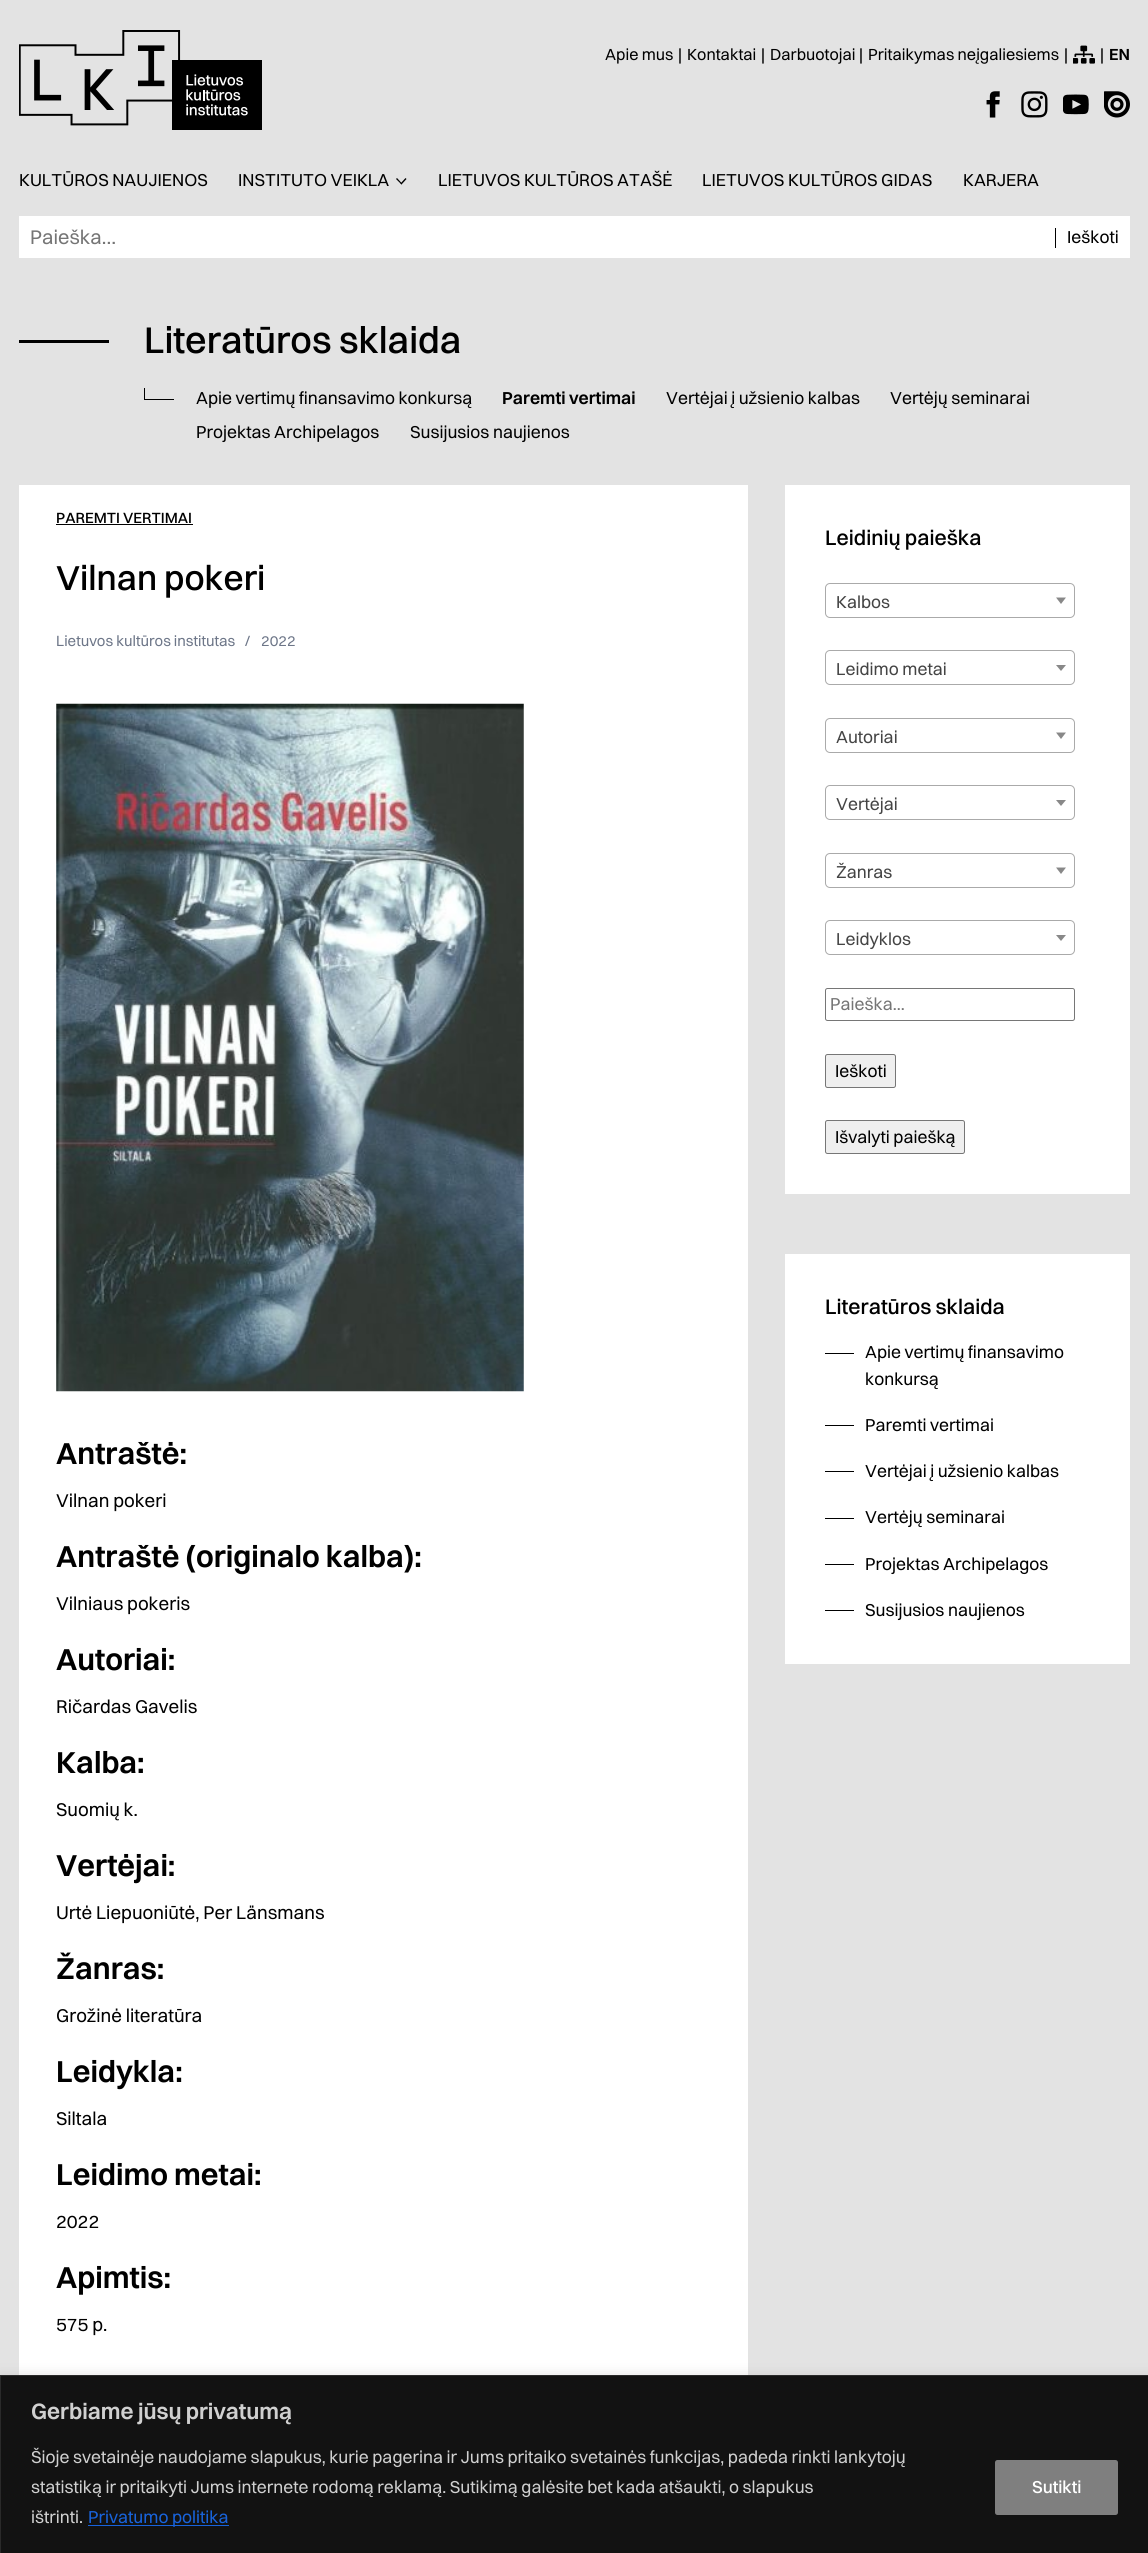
import math
import cairo

surface = cairo.ImageSurface(cairo.FORMAT_RGB24, 1148, 2553)
ctx = cairo.Context(surface)
options = cairo.FontOptions()
options.set_hint_metrics(cairo.HINT_METRICS_OFF)
options.set_hint_style(cairo.HINT_STYLE_NONE)
ctx.set_font_options(options)
ctx.set_miter_limit(4)


def set_color(code):
    ctx.set_source_rgb(*(v / 255 for v in bytes.fromhex(code[-6:])))


def draw_text(x, y, s, family, size, color, bold=False, italic=False):
    ctx.select_font_face(family, cairo.FONT_SLANT_ITALIC if italic else cairo.FONT_SLANT_NORMAL, cairo.FONT_WEIGHT_BOLD if bold else cairo.FONT_WEIGHT_NORMAL)
    ctx.set_font_size(size)
    set_color(color)
    ctx.move_to(x, y)
    ctx.show_text(s)


def fill_rect(x, y, w, h, color):
    set_color(color)
    ctx.rectangle(x, y, w, h)
    ctx.fill()


def rounded_rect(x, y, w, h, r):
    ctx.new_sub_path()
    for i, (u, v) in enumerate([(x + w - r, y + h - r), (x + r, y + h - r), (x + r, y + r), (x + w - r, y + r)]):
        ctx.arc(u, v, r, i * math.pi / 2, (i + 1) * math.pi / 2)
    ctx.close_path()


def draw_shadow(x, y, w, h, r, blur, alpha):
    ctx.push_group_with_content(cairo.CONTENT_ALPHA)
    ctx.set_operator(cairo.OPERATOR_SOURCE)
    for i in range(15, -16, -2):
        e = blur * i / 6
        if min(w, h) + 2 * e > 0:
            ctx.set_source_rgba(0, 0, 0, alpha * math.erfc((i - 1) / 8.5) / 2)
            rounded_rect(x - e, y - e, w + 2 * e, h + 2 * e, max(0, min(r + e + blur * .6, min(w, h) / 2 + e)))
            ctx.fill()
    ctx.mask(ctx.pop_group())


def draw_image(path, x, y, w, h):
    ctx.save()
    ctx.set_source_surface(cairo.ImageSurface.create_from_png(path), x, y)
    ctx.rectangle(x, y, w, h)
    ctx.fill()
    ctx.restore()


set_color("#e3e3e3")
ctx.paint()
draw_image("assets/img1.png", 19, 30, 243, 100)
draw_text(605, 60, "Apie mus", "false", 16.25, "#000000")
draw_text(678, 60, "|", "false", 16.25, "#000000")
draw_text(687, 60, "Kontaktai", "false", 16.25, "#000000")
draw_text(761, 60, "|", "false", 16.25, "#000000")
draw_text(770, 60, "Darbuotojai", "false", 16.25, "#000000")
draw_text(859, 60, "|", "false", 16.25, "#000000")
draw_text(868, 60, "Pritaikymas neįgaliesiems", "false", 16.25, "#000000")
draw_text(1064, 60, "|", "false", 16.25, "#000000")
draw_image("assets/img2.png", 1073, 45, 22, 19)
draw_text(1100, 60, "|", "false", 16.25, "#000000")
draw_text(1109, 60, "EN", "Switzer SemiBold", 16.25, "#000000")
draw_image("assets/img3.png", 986, 91, 14, 27)
draw_image("assets/img4.png", 1021, 91, 27, 27)
draw_image("assets/img5.png", 1063, 94, 26, 21)
draw_image("assets/img6.png", 1104, 91, 26, 27)
draw_text(19, 186, "KULTŪROS NAUJIENOS", "false", 17.5, "#000000")
draw_text(238, 186, "INSTITUTO VEIKLA", "false", 17.5, "#000000")
ctx.new_path()
ctx.move_to(400.5, 183.5)
ctx.line_to(405.5, 178)
ctx.line_to(406.5, 179)
ctx.line_to(401.5, 184.5)
ctx.close_path()
ctx.fill()
ctx.new_path()
ctx.move_to(396, 179)
ctx.line_to(397, 178)
ctx.line_to(402, 183.5)
ctx.line_to(401.5, 184.5)
ctx.close_path()
ctx.fill()
draw_text(438, 186, "LIETUVOS KULTŪROS ATAŠĖ", "false", 17.5, "#000000")
draw_text(702, 186, "LIETUVOS KULTŪROS GIDAS", "false", 17.5, "#000000")
draw_text(963, 186, "KARJERA", "false", 17.5, "#000000")
fill_rect(19, 216, 1111, 42, "#ffffff")
draw_text(30, 244, "Paieška…", "false", 20, "#757575")
fill_rect(1055, 228, 1, 20, "#000000")
draw_text(1067, 243, "Ieškoti", "false", 17.5, "#000000")
fill_rect(19, 340, 90, 3, "#000000")
draw_text(144, 353, "Literatūros sklaida", "Switzer Medium", 37.5, "#000000")
fill_rect(144, 388, 1, 11, "#000000")
draw_text(196, 404, "Apie vertimų finansavimo konkursą", "false", 17.5, "#000000")
draw_text(502, 404, "Paremti vertimai", "Switzer SemiBold", 17.5, "#000000")
draw_text(666, 404, "Vertėjai į užsienio kalbas", "false", 17.5, "#000000")
draw_text(890, 404, "Vertėjų seminarai", "false", 17.5, "#000000")
fill_rect(144, 399, 30, 1, "#000000")
draw_text(196, 438, "Projektas Archipelagos", "false", 17.5, "#000000")
draw_text(410, 438, "Susijusios naujienos", "false", 17.5, "#000000")
fill_rect(19, 485, 729, 1890, "#ffffff")
draw_text(56, 523, "PAREMTI VERTIMAI", "Switzer Medium", 15, "#000000")
fill_rect(56, 524, 137, 1, "#000000")
draw_text(56, 590, "Vilnan pokeri", "Switzer Medium", 35, "#000000")
draw_text(56, 646, "Lietuvos kultūros institutas", "false", 15, "#6d7688")
draw_text(245, 646, "/", "false", 15, "#6d7688")
draw_text(261, 646, "2022", "false", 15, "#6d7688")
draw_image("assets/img7.png", 56, 703, 468, 689)
draw_text(56, 1464, "Antraštė:", "Switzer SemiBold", 30.6, "#000000")
draw_text(56, 1507, "Vilnan pokeri", "false", 18.75, "#000000")
draw_text(56, 1567, "Antraštė (originalo kalba):", "Switzer SemiBold", 30.6, "#000000")
draw_text(56, 1610, "Vilniaus pokeris", "false", 18.75, "#000000")
draw_text(56, 1670, "Autoriai:", "Switzer SemiBold", 30.6, "#000000")
draw_text(56, 1713, "Ričardas Gavelis", "false", 18.75, "#000000")
draw_text(56, 1773, "Kalba:", "Switzer SemiBold", 30.6, "#000000")
draw_text(56, 1816, "Suomių k.", "false", 18.75, "#000000")
draw_text(56, 1876, "Vertėjai:", "Switzer SemiBold", 30.6, "#000000")
draw_text(56, 1919, "Urtė Liepuoniūtė, Per Länsmans", "false", 18.75, "#000000")
draw_text(56, 1979, "Žanras:", "Switzer SemiBold", 30.6, "#000000")
draw_text(56, 2022, "Grožinė literatūra", "false", 18.75, "#000000")
draw_text(56, 2082, "Leidykla:", "Switzer SemiBold", 30.6, "#000000")
draw_text(56, 2125, "Siltala", "false", 18.75, "#000000")
draw_text(56, 2185, "Leidimo metai:", "Switzer SemiBold", 30.6, "#000000")
draw_text(56, 2228, "2022", "false", 18.75, "#000000")
draw_text(56, 2288, "Apimtis:", "Switzer SemiBold", 30.6, "#000000")
draw_text(56, 2331, "575 p.", "false", 18.75, "#000000")
fill_rect(785, 485, 345, 709, "#ffffff")
draw_text(825, 545, "Leidinių paieška", "Switzer Medium", 21.25, "#000000")
rounded_rect(825.5, 583.5, 249, 34, 4.5)
set_color("#aaaaaa")
ctx.set_line_width(1)
ctx.stroke()
draw_text(836, 608, "Kalbos", "false", 17.5, "#444444")
set_color("#888888")
ctx.new_path()
ctx.move_to(1056, 597.5)
ctx.line_to(1066, 597.5)
ctx.line_to(1061, 604)
ctx.close_path()
ctx.fill()
rounded_rect(825.5, 650.5, 249, 34, 4.5)
set_color("#aaaaaa")
ctx.stroke()
draw_text(836, 675, "Leidimo metai", "false", 17.5, "#444444")
set_color("#888888")
ctx.new_path()
ctx.move_to(1056, 665)
ctx.line_to(1066, 665)
ctx.line_to(1061, 671)
ctx.close_path()
ctx.fill()
rounded_rect(825.5, 718.5, 249, 34, 4.5)
set_color("#aaaaaa")
ctx.stroke()
draw_text(836, 743, "Autoriai", "false", 17.5, "#444444")
set_color("#888888")
ctx.new_path()
ctx.move_to(1056, 732.5)
ctx.line_to(1066, 732.5)
ctx.line_to(1061, 739)
ctx.close_path()
ctx.fill()
rounded_rect(825.5, 785.5, 249, 34, 4.5)
set_color("#aaaaaa")
ctx.stroke()
draw_text(836, 810, "Vertėjai", "false", 17.5, "#444444")
set_color("#888888")
ctx.new_path()
ctx.move_to(1056, 800)
ctx.line_to(1066, 800)
ctx.line_to(1061, 806)
ctx.close_path()
ctx.fill()
rounded_rect(825.5, 853.5, 249, 34, 4.5)
set_color("#aaaaaa")
ctx.stroke()
draw_text(836, 878, "Žanras", "false", 17.5, "#444444")
set_color("#888888")
ctx.new_path()
ctx.move_to(1056, 867.5)
ctx.line_to(1066, 867.5)
ctx.line_to(1061, 874)
ctx.close_path()
ctx.fill()
rounded_rect(825.5, 920.5, 249, 34, 4.5)
set_color("#aaaaaa")
ctx.stroke()
draw_text(836, 945, "Leidyklos", "false", 17.5, "#444444")
set_color("#888888")
ctx.new_path()
ctx.move_to(1056, 935)
ctx.line_to(1066, 935)
ctx.line_to(1061, 941)
ctx.close_path()
ctx.fill()
rounded_rect(825.5, 988.5, 249, 32, 2)
set_color("#767676")
ctx.stroke()
draw_text(830, 1010, "Paieška...", "false", 17.5, "#757575")
set_color("#efefef")
rounded_rect(825.5, 1054.5, 70, 33, 2)
ctx.fill_preserve()
set_color("#767676")
ctx.stroke()
draw_text(835, 1077, "Ieškoti", "false", 17.5, "#000000")
set_color("#efefef")
rounded_rect(825.5, 1120.5, 139, 33, 2)
ctx.fill_preserve()
set_color("#767676")
ctx.stroke()
draw_text(835, 1143, "Išvalyti paiešką", "false", 17.5, "#000000")
fill_rect(785, 1254, 345, 410, "#ffffff")
draw_text(825, 1314, "Literatūros sklaida", "Switzer Medium", 21.25, "#000000")
fill_rect(825, 1353, 29, 1, "#000000")
draw_text(865, 1358, "Apie vertimų finansavimo", "false", 17.5, "#000000")
draw_text(865, 1385, "konkursą", "false", 17.5, "#000000")
fill_rect(825, 1425, 29, 1, "#000000")
draw_text(865, 1431, "Paremti vertimai", "false", 17.5, "#000000")
fill_rect(825, 1471, 29, 1, "#000000")
draw_text(865, 1477, "Vertėjai į užsienio kalbas", "false", 17.5, "#000000")
fill_rect(825, 1518, 29, 1, "#000000")
draw_text(865, 1523, "Vertėjų seminarai", "false", 17.5, "#000000")
fill_rect(825, 1564, 29, 1, "#000000")
draw_text(865, 1570, "Projektas Archipelagos", "false", 17.5, "#000000")
fill_rect(825, 1610, 29, 1, "#000000")
draw_text(865, 1616, "Susijusios naujienos", "false", 17.5, "#000000")
set_color("#acabab")
draw_shadow(0, 2374, 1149, 179, 0, 6, 0.3)
set_color("#121212")
ctx.rectangle(0.5, 2375.5, 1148, 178)
ctx.fill_preserve()
set_color("#2a2a2a")
ctx.stroke()
draw_text(31, 2419, "Gerbiame jūsų privatumą", "Switzer SemiBold", 22.5, "#d0d0d0")
draw_text(31, 2463, "Šioje svetainėje naudojame slapukus, kurie pagerina ir Jums pritaiko svetainės funkcijas, padeda rinkti lankytojų", "false", 17.5, "#d0d0d0")
draw_text(31, 2493, "statistiką ir pritaikyti Jums internete rodomą reklamą. Sutikimą galėsite bet kada atšaukti, o slapukus", "false", 17.5, "#d0d0d0")
draw_text(31, 2523, "ištrinti.", "false", 17.5, "#d0d0d0")
fill_rect(88, 2525, 141, 1, "#1863dc")
draw_text(88, 2523, "Privatumo politika", "false", 17.5, "#1863dc")
set_color("#7f7f7f")
rounded_rect(996.5, 2461.5, 120, 52, 1)
ctx.fill_preserve()
ctx.set_line_width(3)
ctx.stroke()
draw_text(1032, 2493, "Sutikti", "Switzer Medium", 17.5, "#ffffff")
surface.write_to_png("output.png")
